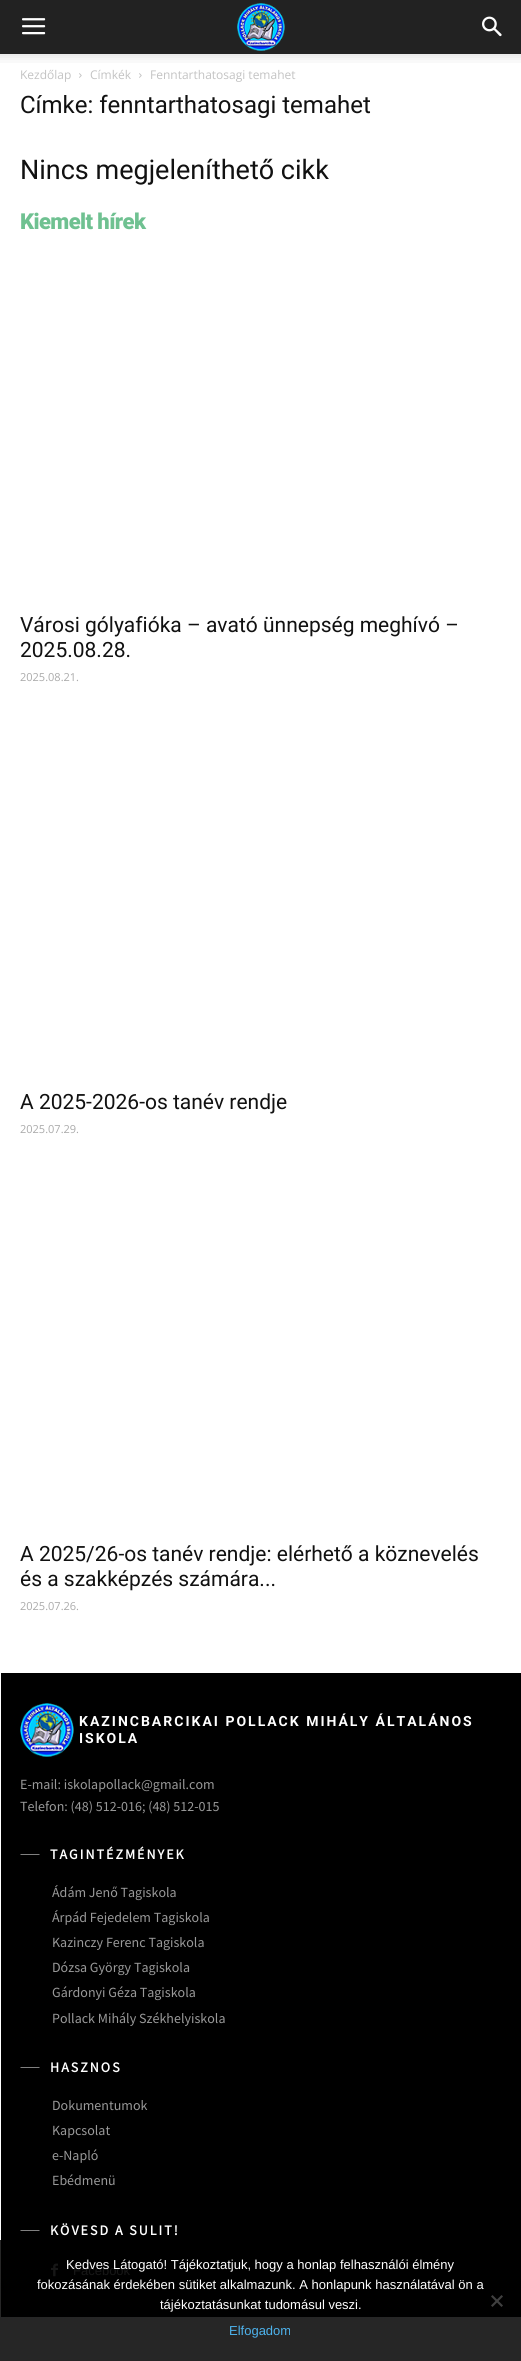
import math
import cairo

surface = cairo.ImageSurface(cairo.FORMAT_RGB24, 521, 2361)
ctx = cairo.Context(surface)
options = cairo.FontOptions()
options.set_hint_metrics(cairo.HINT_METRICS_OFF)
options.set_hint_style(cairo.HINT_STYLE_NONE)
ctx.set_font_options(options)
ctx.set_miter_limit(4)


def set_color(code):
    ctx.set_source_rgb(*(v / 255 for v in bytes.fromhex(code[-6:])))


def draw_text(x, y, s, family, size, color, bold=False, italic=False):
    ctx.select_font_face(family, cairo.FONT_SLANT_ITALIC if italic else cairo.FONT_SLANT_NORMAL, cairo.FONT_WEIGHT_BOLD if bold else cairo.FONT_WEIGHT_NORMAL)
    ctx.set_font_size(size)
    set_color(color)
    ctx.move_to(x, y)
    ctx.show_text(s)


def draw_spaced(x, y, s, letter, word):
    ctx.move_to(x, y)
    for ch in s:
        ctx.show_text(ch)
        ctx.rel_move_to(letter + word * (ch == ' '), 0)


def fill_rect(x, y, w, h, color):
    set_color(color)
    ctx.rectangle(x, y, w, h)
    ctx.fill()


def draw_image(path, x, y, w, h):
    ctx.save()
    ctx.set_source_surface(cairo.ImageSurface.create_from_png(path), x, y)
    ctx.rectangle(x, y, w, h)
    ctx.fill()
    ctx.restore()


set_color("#ffffff")
ctx.paint()
fill_rect(0, 2240, 521, 121, "#262626")
fill_rect(0, 0, 521, 54, "#222222")
draw_image("assets/img1.png", 22, 18, 24, 17)
draw_image("assets/img2.png", 237, 3, 48, 48)
draw_image("assets/img3.png", 482, 16, 20, 21)
draw_image("assets/img4.png", 0, 54, 521, 9)
draw_text(20, 79, "Kezdőlap", "Open Sans", 12, "#c3c3c3")
draw_image("assets/img5.png", 79, 73, 3, 5)
draw_text(90, 79, "Címkék", "Open Sans", 12, "#c3c3c3")
draw_image("assets/img5.png", 139, 73, 3, 5)
draw_text(150, 79, "Fenntarthatosagi temahet", "Open Sans", 12, "#c3c3c3")
draw_text(20, 113, "Címke: fenntarthatosagi temahet", "Roboto", 24, "#111111")
draw_text(20, 179, "Nincs megjeleníthető cikk", "Roboto", 27, "#111111")
ctx.select_font_face("Roboto Black")
ctx.set_font_size(22)
set_color("#6fc191")
draw_spaced(20, 229, "Kiemelt hírek", -0.6, 0)
draw_text(20, 632, "Városi gólyafióka – avató ünnepség meghívó –", "Roboto", 21, "#111111")
draw_text(20, 657, "2025.08.28.", "Roboto", 21, "#111111")
draw_text(20, 681, "2025.08.21.", "Open Sans", 11, "#aaaaaa")
draw_text(20, 1109, "A 2025-2026-os tanév rendje", "Roboto", 21, "#111111")
draw_text(20, 1133, "2025.07.29.", "Open Sans", 11, "#aaaaaa")
draw_text(20, 1561, "A 2025/26-os tanév rendje: elérhető a köznevelés", "Roboto", 21, "#111111")
draw_text(20, 1586, "és a szakképzés számára...", "Roboto", 21, "#111111")
draw_text(20, 1610, "2025.07.26.", "Open Sans", 11, "#aaaaaa")
fill_rect(1, 1673, 520, 644, "#000000")
draw_image("assets/img6.png", 20, 1703, 54, 54)
ctx.select_font_face("Roboto", cairo.FONT_SLANT_NORMAL, cairo.FONT_WEIGHT_BOLD)
ctx.set_font_size(14)
set_color("#ffffff")
draw_spaced(79, 1726, "KAZINCBARCIKAI POLLACK MIHÁLY ÁLTALÁNOS", 2, 0)
draw_spaced(79, 1743, "ISKOLA", 2, 0)
draw_text(20, 1789, "E-mail: iskolapollack@gmail.com", "Source Sans Pro", 14, "#999999")
draw_text(20, 1811, "Telefon: (48) 512-016; (48) 512-015", "Source Sans Pro", 14, "#999999")
set_color("#ffffff")
ctx.new_path()
ctx.move_to(20.5, 1854)
ctx.line_to(39.5, 1854)
ctx.line_to(39.5, 1854.5)
ctx.line_to(20.5, 1854.5)
ctx.close_path()
ctx.fill()
ctx.select_font_face("Source Sans Pro", cairo.FONT_SLANT_NORMAL, cairo.FONT_WEIGHT_BOLD)
draw_spaced(50, 1859, "TAGINTÉZMÉNYEK", 2, 0)
draw_text(52, 1897, "Ádám Jenő Tagiskola", "Source Sans Pro", 14, "#999999")
draw_text(52, 1922, "Árpád Fejedelem Tagiskola", "Source Sans Pro", 14, "#999999")
draw_text(52, 1947, "Kazinczy Ferenc Tagiskola", "Source Sans Pro", 14, "#999999")
draw_text(52, 1972, "Dózsa György Tagiskola", "Source Sans Pro", 14, "#999999")
draw_text(52, 1997, "Gárdonyi Géza Tagiskola", "Source Sans Pro", 14, "#999999")
draw_text(52, 2023, "Pollack Mihály Székhelyiskola", "Source Sans Pro", 14, "#999999")
set_color("#ffffff")
ctx.new_path()
ctx.move_to(20.5, 2067)
ctx.line_to(39.5, 2067)
ctx.line_to(39.5, 2067.5)
ctx.line_to(20.5, 2067.5)
ctx.close_path()
ctx.fill()
ctx.select_font_face("Source Sans Pro", cairo.FONT_SLANT_NORMAL, cairo.FONT_WEIGHT_BOLD)
draw_spaced(50, 2072, "HASZNOS", 2, 0)
draw_text(52, 2110, "Dokumentumok", "Source Sans Pro", 14, "#999999")
draw_text(52, 2135, "Kapcsolat", "Source Sans Pro", 14, "#999999")
draw_text(52, 2160, "e-Napló", "Source Sans Pro", 14, "#999999")
draw_text(52, 2185, "Ebédmenü", "Source Sans Pro", 14, "#999999")
set_color("#ffffff")
ctx.new_path()
ctx.move_to(20.5, 2230)
ctx.line_to(39.5, 2230)
ctx.line_to(39.5, 2230.5)
ctx.line_to(20.5, 2230.5)
ctx.close_path()
ctx.fill()
ctx.select_font_face("Source Sans Pro", cairo.FONT_SLANT_NORMAL, cairo.FONT_WEIGHT_BOLD)
draw_spaced(50, 2235, "KÖVESD A SULIT!", 2, 0)
draw_image("assets/img7.png", 51, 2263, 7, 14)
draw_text(73, 2275, "Facebook", "Liberation Sans", 13, "#171717")
draw_text(66, 2269, "Kedves Látogató! Tájékoztatjuk, hogy a honlap felhasználói élmény", "Liberation Sans", 13, "#ffffff")
draw_text(37, 2289, "fokozásának érdekében sütiket alkalmazunk. A honlapunk használatával ön a", "Liberation Sans", 13, "#ffffff")
draw_text(160, 2309, "tájékoztatásunkat tudomásul veszi.", "Liberation Sans", 13, "#ffffff")
set_color("#404040")
ctx.new_path()
ctx.move_to(501.5, 2295)
ctx.line_to(503, 2296.5)
ctx.line_to(492.5, 2307)
ctx.line_to(491, 2305.5)
ctx.close_path()
ctx.fill()
ctx.new_path()
ctx.move_to(491, 2296.5)
ctx.line_to(492.5, 2295)
ctx.line_to(503, 2305.5)
ctx.line_to(501.5, 2307)
ctx.close_path()
ctx.fill()
draw_text(229, 2335, "Elfogadom", "Liberation Sans", 13, "#4db2ec")
surface.write_to_png("output.png")
